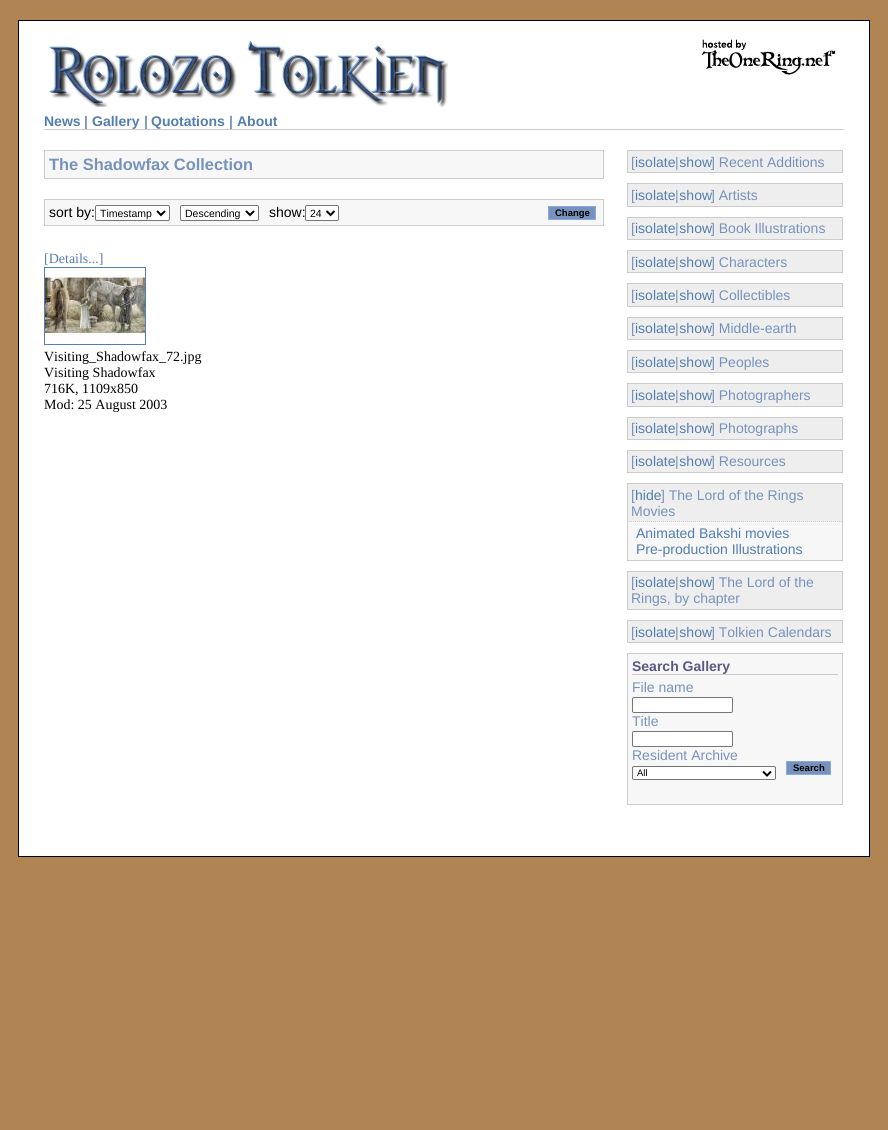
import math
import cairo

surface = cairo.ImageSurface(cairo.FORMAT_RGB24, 888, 1130)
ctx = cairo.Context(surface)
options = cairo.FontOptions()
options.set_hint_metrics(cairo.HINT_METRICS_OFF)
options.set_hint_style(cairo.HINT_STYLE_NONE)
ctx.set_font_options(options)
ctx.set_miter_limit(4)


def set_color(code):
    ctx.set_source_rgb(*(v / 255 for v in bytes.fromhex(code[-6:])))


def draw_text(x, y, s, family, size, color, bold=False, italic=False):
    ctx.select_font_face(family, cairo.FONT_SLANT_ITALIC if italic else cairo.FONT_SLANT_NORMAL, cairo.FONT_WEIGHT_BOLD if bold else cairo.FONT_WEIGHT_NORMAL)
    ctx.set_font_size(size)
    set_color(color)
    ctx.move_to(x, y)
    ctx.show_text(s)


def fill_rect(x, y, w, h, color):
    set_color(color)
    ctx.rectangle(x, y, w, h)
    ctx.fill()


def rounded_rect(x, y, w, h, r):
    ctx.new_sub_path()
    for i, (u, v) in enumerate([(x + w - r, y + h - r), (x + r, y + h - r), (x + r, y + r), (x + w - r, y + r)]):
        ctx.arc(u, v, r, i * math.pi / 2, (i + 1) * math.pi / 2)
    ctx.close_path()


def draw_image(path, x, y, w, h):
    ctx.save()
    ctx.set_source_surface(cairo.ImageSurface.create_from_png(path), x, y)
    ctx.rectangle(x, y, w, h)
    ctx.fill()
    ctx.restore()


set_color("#b08553")
ctx.paint()
set_color("#ffffff")
ctx.rectangle(18.5, 20.5, 851, 836)
ctx.fill_preserve()
set_color("#000000")
ctx.set_line_width(1)
ctx.stroke()
draw_image("assets/img1.png", 49, 40, 399, 67)
draw_image("assets/img2.png", 701, 39, 134, 36)
fill_rect(44, 129, 800, 1, "#cccccc")
draw_text(44, 126, "News", "Liberation Sans", 14, "#537eb0", bold=True)
draw_text(84, 126, "|", "Liberation Sans", 14, "#7792bc", bold=True)
draw_text(92, 126, "Gallery", "Liberation Sans", 14, "#537eb0", bold=True)
draw_text(144, 126, "|", "Liberation Sans", 14, "#7792bc", bold=True)
draw_text(151, 126, "Quotations", "Liberation Sans", 14, "#537eb0", bold=True)
draw_text(229, 126, "|", "Liberation Sans", 14, "#7792bc", bold=True)
draw_text(237, 126, "About", "Liberation Sans", 14, "#537eb0", bold=True)
set_color("#f7f7f7")
ctx.rectangle(44.5, 150.5, 559, 28)
ctx.fill_preserve()
set_color("#cccccc")
ctx.stroke()
draw_text(49, 170, "The Shadowfax Collection", "Liberation Sans", 16.4, "#7792bc", bold=True)
set_color("#f7f7f7")
ctx.rectangle(44.5, 199.5, 559, 26)
ctx.fill_preserve()
set_color("#cccccc")
ctx.stroke()
draw_text(49, 217, "sort by:", "Liberation Sans", 14, "#000000")
set_color("#ffffff")
rounded_rect(95.5, 205.5, 74, 15, 1.5)
ctx.fill_preserve()
set_color("#767676")
ctx.stroke()
ctx.new_path()
ctx.move_to(157, 211)
ctx.line_to(161, 215)
ctx.line_to(165, 211)
set_color("#000000")
ctx.set_line_width(2)
ctx.stroke()
draw_text(100, 217, "Timestamp", "Liberation Sans", 10.5, "#000000")
set_color("#ffffff")
rounded_rect(180.5, 205.5, 78, 15, 1.5)
ctx.fill_preserve()
set_color("#767676")
ctx.set_line_width(1)
ctx.stroke()
ctx.new_path()
ctx.move_to(246, 211)
ctx.line_to(250, 215)
ctx.line_to(254, 211)
set_color("#000000")
ctx.set_line_width(2)
ctx.stroke()
draw_text(185, 217, "Descending", "Liberation Sans", 10.5, "#000000")
draw_text(269, 217, "show:", "Liberation Sans", 14, "#000000")
set_color("#ffffff")
rounded_rect(305.5, 205.5, 33, 15, 1.5)
ctx.fill_preserve()
set_color("#767676")
ctx.set_line_width(1)
ctx.stroke()
ctx.new_path()
ctx.move_to(326.5, 211)
ctx.line_to(330.5, 215)
ctx.line_to(334.5, 211)
set_color("#000000")
ctx.set_line_width(2)
ctx.stroke()
draw_text(310, 217, "24", "Liberation Sans", 10.5, "#000000")
set_color("#7792bc")
ctx.rectangle(548.5, 206.5, 47, 13)
ctx.fill_preserve()
set_color("#88aadd")
ctx.set_line_width(1)
ctx.stroke()
draw_text(555, 216, "Change", "Liberation Sans", 9.5, "#000000", bold=True)
draw_text(44, 263, "[Details...]", "Liberation Serif", 14, "#537eb0")
ctx.rectangle(44.5, 267.5, 101, 77)
ctx.stroke()
draw_image("assets/img3.png", 45, 268, 100, 72)
draw_text(44, 361, "Visiting_Shadowfax_72.jpg", "Liberation Serif", 14, "#000000")
draw_text(44, 377, "Visiting Shadowfax", "Liberation Serif", 14, "#000000")
draw_text(44, 393, "716K, 1109x850", "Liberation Serif", 14, "#000000")
draw_text(44, 409, "Mod: 25 August 2003", "Liberation Serif", 14, "#000000")
set_color("#eeeeee")
ctx.rectangle(627.5, 150.5, 215, 22)
ctx.fill_preserve()
set_color("#cccccc")
ctx.stroke()
draw_text(631, 167, "[", "Liberation Sans", 14, "#7792bc")
draw_text(635, 167, "isolate show", "Liberation Sans", 14, "#537eb0")
draw_text(675, 167, "|", "Liberation Sans", 14, "#7792bc")
draw_text(711, 167, "] Recent Additions", "Liberation Sans", 14, "#7792bc")
set_color("#eeeeee")
ctx.rectangle(627.5, 183.5, 215, 23)
ctx.fill_preserve()
set_color("#cccccc")
ctx.stroke()
draw_text(631, 200, "[", "Liberation Sans", 14, "#7792bc")
draw_text(635, 200, "isolate show", "Liberation Sans", 14, "#537eb0")
draw_text(675, 200, "|", "Liberation Sans", 14, "#7792bc")
draw_text(711, 200, "] Artists", "Liberation Sans", 14, "#7792bc")
set_color("#eeeeee")
ctx.rectangle(627.5, 217.5, 215, 22)
ctx.fill_preserve()
set_color("#cccccc")
ctx.stroke()
draw_text(631, 233, "[", "Liberation Sans", 14, "#7792bc")
draw_text(635, 233, "isolate show", "Liberation Sans", 14, "#537eb0")
draw_text(675, 233, "|", "Liberation Sans", 14, "#7792bc")
draw_text(711, 233, "] Book Illustrations", "Liberation Sans", 14, "#7792bc")
set_color("#eeeeee")
ctx.rectangle(627.5, 250.5, 215, 22)
ctx.fill_preserve()
set_color("#cccccc")
ctx.stroke()
draw_text(631, 267, "[", "Liberation Sans", 14, "#7792bc")
draw_text(635, 267, "isolate show", "Liberation Sans", 14, "#537eb0")
draw_text(675, 267, "|", "Liberation Sans", 14, "#7792bc")
draw_text(711, 267, "] Characters", "Liberation Sans", 14, "#7792bc")
set_color("#eeeeee")
ctx.rectangle(627.5, 283.5, 215, 23)
ctx.fill_preserve()
set_color("#cccccc")
ctx.stroke()
draw_text(631, 300, "[", "Liberation Sans", 14, "#7792bc")
draw_text(635, 300, "isolate show", "Liberation Sans", 14, "#537eb0")
draw_text(675, 300, "|", "Liberation Sans", 14, "#7792bc")
draw_text(711, 300, "] Collectibles", "Liberation Sans", 14, "#7792bc")
set_color("#eeeeee")
ctx.rectangle(627.5, 317.5, 215, 22)
ctx.fill_preserve()
set_color("#cccccc")
ctx.stroke()
draw_text(631, 333, "[", "Liberation Sans", 14, "#7792bc")
draw_text(635, 333, "isolate show", "Liberation Sans", 14, "#537eb0")
draw_text(675, 333, "|", "Liberation Sans", 14, "#7792bc")
draw_text(711, 333, "] Middle-earth", "Liberation Sans", 14, "#7792bc")
set_color("#eeeeee")
ctx.rectangle(627.5, 350.5, 215, 22)
ctx.fill_preserve()
set_color("#cccccc")
ctx.stroke()
draw_text(631, 367, "[", "Liberation Sans", 14, "#7792bc")
draw_text(635, 367, "isolate show", "Liberation Sans", 14, "#537eb0")
draw_text(675, 367, "|", "Liberation Sans", 14, "#7792bc")
draw_text(711, 367, "] Peoples", "Liberation Sans", 14, "#7792bc")
set_color("#eeeeee")
ctx.rectangle(627.5, 383.5, 215, 23)
ctx.fill_preserve()
set_color("#cccccc")
ctx.stroke()
draw_text(631, 400, "[", "Liberation Sans", 14, "#7792bc")
draw_text(635, 400, "isolate show", "Liberation Sans", 14, "#537eb0")
draw_text(675, 400, "|", "Liberation Sans", 14, "#7792bc")
draw_text(711, 400, "] Photographers", "Liberation Sans", 14, "#7792bc")
set_color("#eeeeee")
ctx.rectangle(627.5, 417.5, 215, 22)
ctx.fill_preserve()
set_color("#cccccc")
ctx.stroke()
draw_text(631, 433, "[", "Liberation Sans", 14, "#7792bc")
draw_text(635, 433, "isolate show", "Liberation Sans", 14, "#537eb0")
draw_text(675, 433, "|", "Liberation Sans", 14, "#7792bc")
draw_text(711, 433, "] Photographs", "Liberation Sans", 14, "#7792bc")
set_color("#eeeeee")
ctx.rectangle(627.5, 450.5, 215, 22)
ctx.fill_preserve()
set_color("#cccccc")
ctx.stroke()
draw_text(631, 466, "[", "Liberation Sans", 14, "#7792bc")
draw_text(635, 466, "isolate show", "Liberation Sans", 14, "#537eb0")
draw_text(675, 466, "|", "Liberation Sans", 14, "#7792bc")
draw_text(711, 466, "] Resources", "Liberation Sans", 14, "#7792bc")
fill_rect(628, 484, 214, 38, "#eeeeee")
fill_rect(627, 483, 216, 1, "#cccccc")
fill_rect(842, 483, 1, 78, "#cccccc")
ctx.new_path()
ctx.move_to(627, 521.5)
ctx.line_to(843, 521.5)
ctx.set_dash([1, 1])
ctx.stroke()
fill_rect(627, 483, 1, 39, "#cccccc")
draw_text(631, 500, "[", "Liberation Sans", 14, "#7792bc")
draw_text(635, 500, "hide", "Liberation Sans", 14, "#537eb0")
draw_text(661, 500, "] The Lord of the Rings", "Liberation Sans", 14, "#7792bc")
draw_text(631, 516, "Movies", "Liberation Sans", 14, "#7792bc")
fill_rect(628, 522, 214, 38, "#f7f7f7")
fill_rect(627, 560, 216, 1, "#cccccc")
fill_rect(627, 522, 1, 39, "#cccccc")
draw_text(636, 538, "Animated Bakshi movies", "Liberation Sans", 14, "#537eb0")
draw_text(636, 554, "Pre-production Illustrations", "Liberation Sans", 14, "#537eb0")
set_color("#eeeeee")
ctx.rectangle(627.5, 571.5, 215, 38)
ctx.fill_preserve()
set_color("#cccccc")
ctx.set_dash([])
ctx.stroke()
draw_text(631, 587, "[", "Liberation Sans", 14, "#7792bc")
draw_text(635, 587, "isolate show", "Liberation Sans", 14, "#537eb0")
draw_text(675, 587, "|", "Liberation Sans", 14, "#7792bc")
draw_text(711, 587, "] The Lord of the", "Liberation Sans", 14, "#7792bc")
draw_text(631, 603, "Rings, by chapter", "Liberation Sans", 14, "#7792bc")
set_color("#eeeeee")
ctx.rectangle(627.5, 620.5, 215, 22)
ctx.fill_preserve()
set_color("#cccccc")
ctx.stroke()
draw_text(631, 637, "[", "Liberation Sans", 14, "#7792bc")
draw_text(635, 637, "isolate show", "Liberation Sans", 14, "#537eb0")
draw_text(675, 637, "|", "Liberation Sans", 14, "#7792bc")
draw_text(711, 637, "] Tolkien Calendars", "Liberation Sans", 14, "#7792bc")
set_color("#f7f7f7")
ctx.rectangle(627.5, 653.5, 215, 151)
ctx.fill_preserve()
set_color("#cccccc")
ctx.stroke()
fill_rect(632, 674, 206, 1, "#cccccc")
draw_text(632, 671, "Search Gallery", "Liberation Sans", 14, "#595983", bold=True)
draw_text(632, 692, "File name", "Liberation Sans", 14, "#7792bc")
set_color("#ffffff")
rounded_rect(632.5, 697.5, 100, 15, 1.5)
ctx.fill_preserve()
set_color("#767676")
ctx.stroke()
draw_text(632, 726, "Title", "Liberation Sans", 14, "#7792bc")
set_color("#ffffff")
rounded_rect(632.5, 731.5, 100, 15, 1.5)
ctx.fill_preserve()
set_color("#767676")
ctx.stroke()
draw_text(632, 760, "Resident Archive", "Liberation Sans", 14, "#7792bc")
set_color("#ffffff")
rounded_rect(632.5, 766.5, 143, 13, 1.5)
ctx.fill_preserve()
set_color("#767676")
ctx.stroke()
ctx.new_path()
ctx.move_to(763, 771.5)
ctx.line_to(767, 775.5)
ctx.line_to(771, 771.5)
set_color("#000000")
ctx.set_line_width(2)
ctx.stroke()
draw_text(637, 776, "All", "Liberation Sans", 9.5, "#000000")
set_color("#7792bc")
ctx.rectangle(786.5, 761.5, 44, 13)
ctx.fill_preserve()
set_color("#88aadd")
ctx.set_line_width(1)
ctx.stroke()
draw_text(793, 771, "Search", "Liberation Sans", 9.5, "#000000", bold=True)
surface.write_to_png("output.png")
